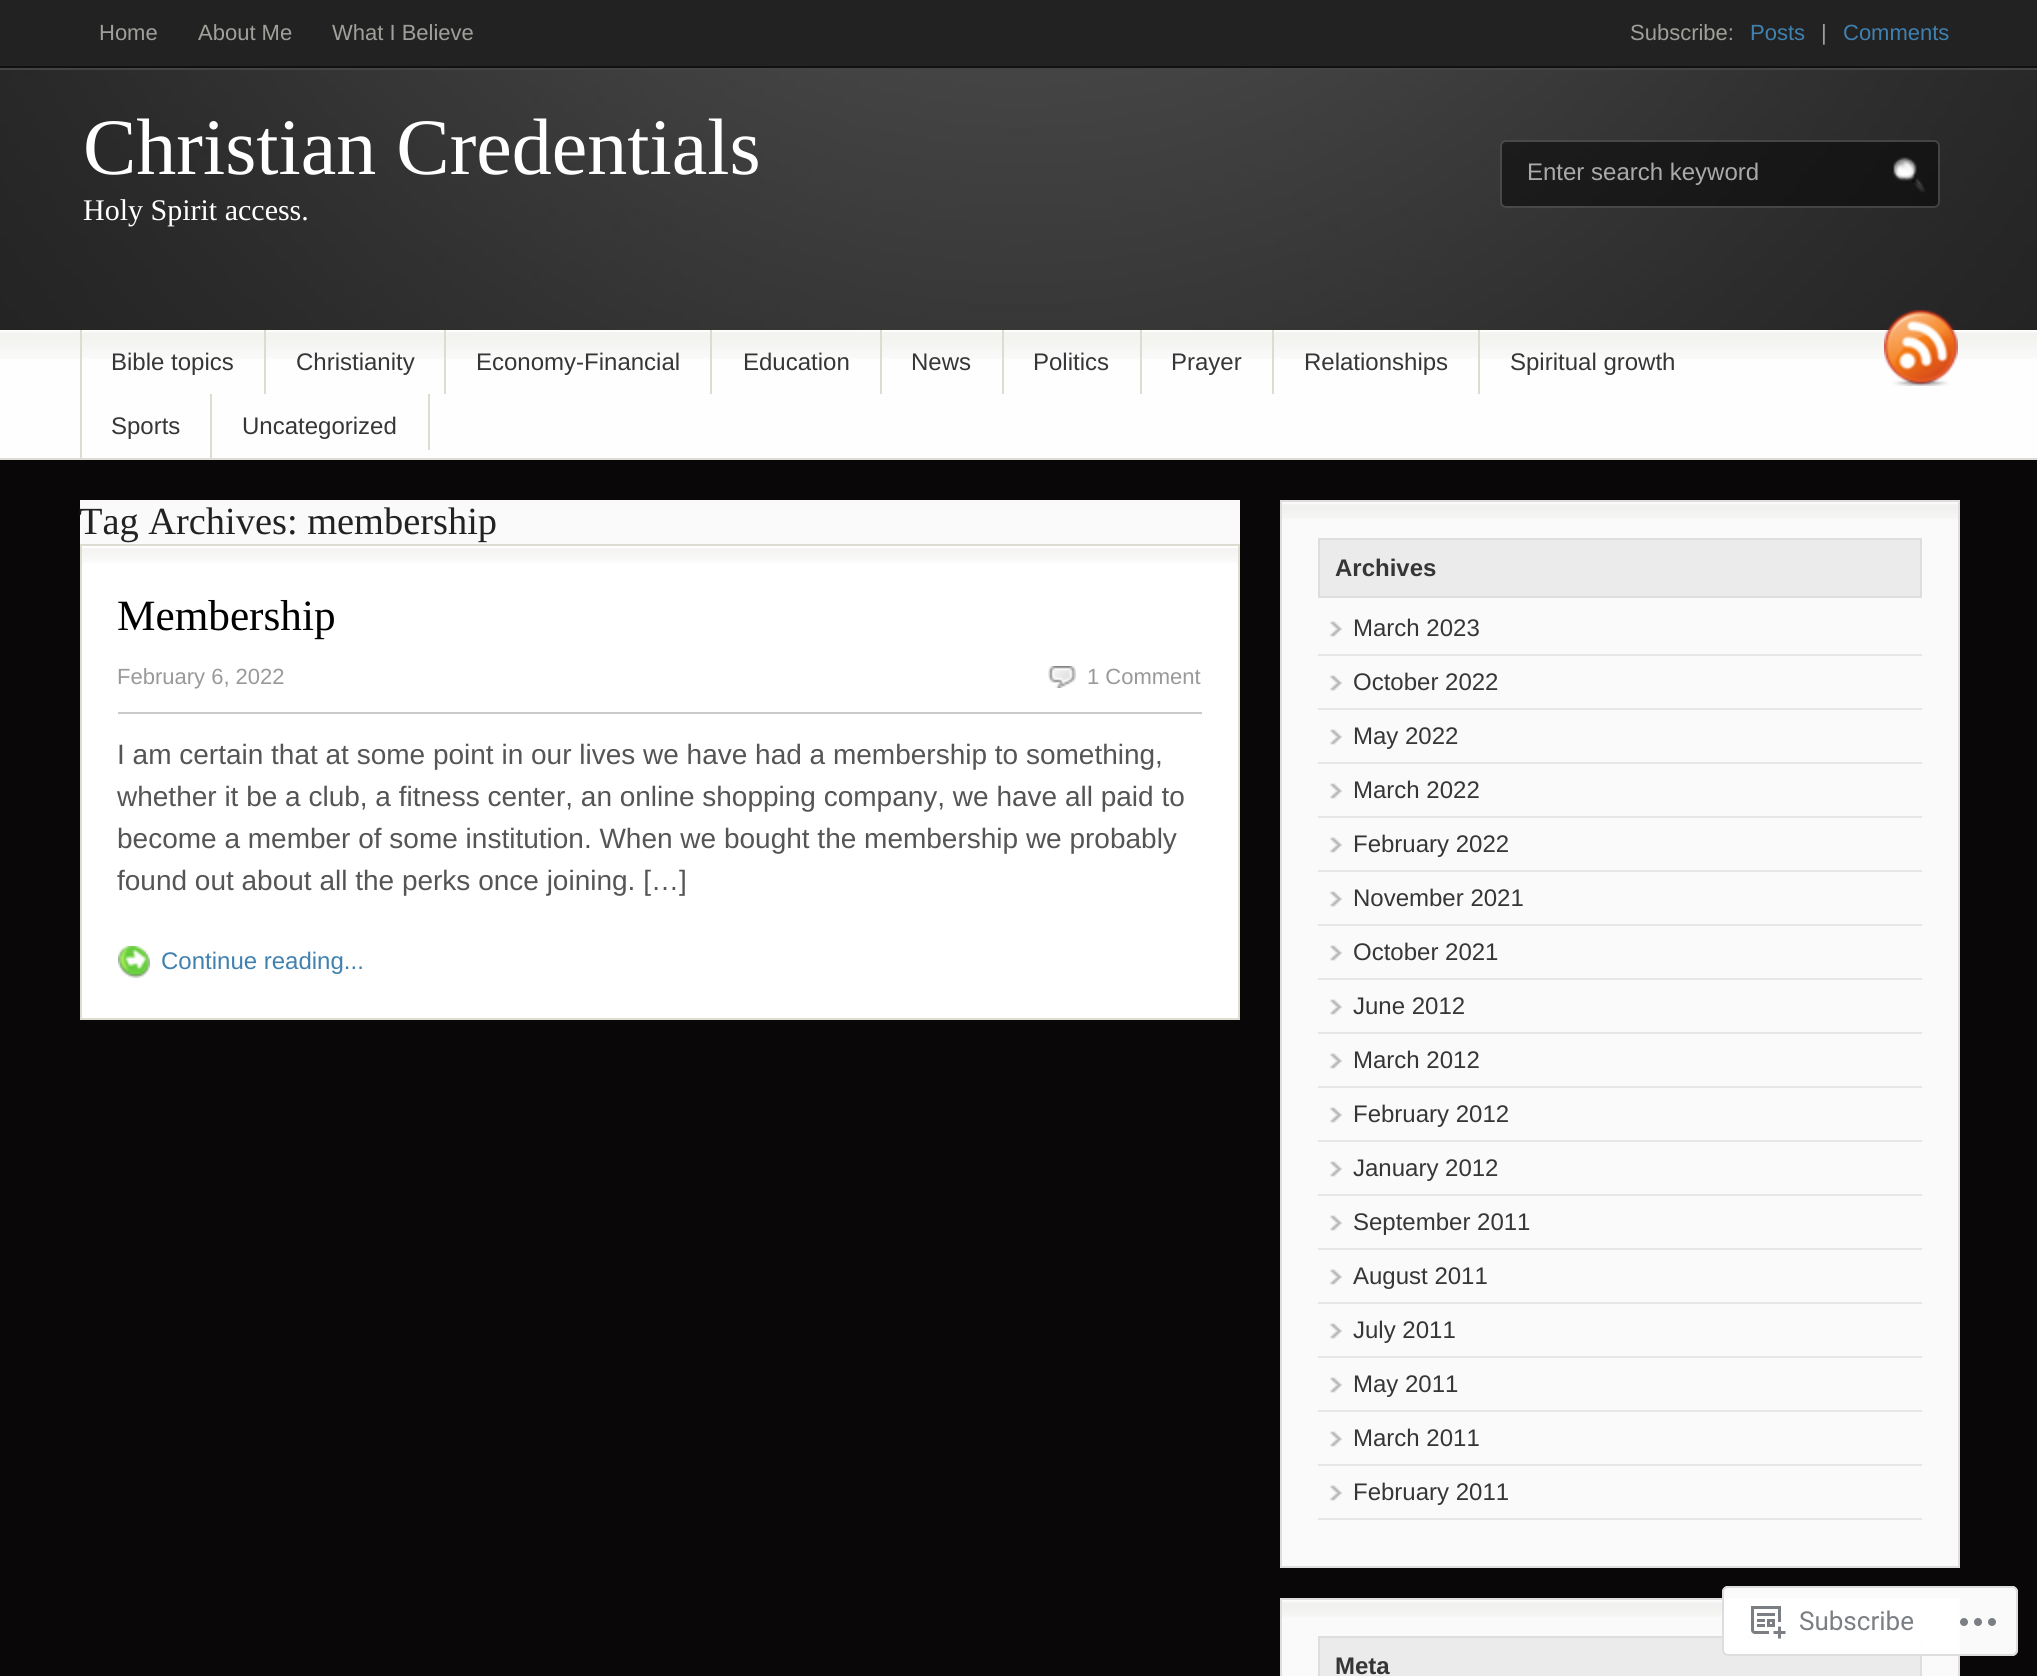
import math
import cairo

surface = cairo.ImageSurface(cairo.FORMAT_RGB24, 2037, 1676)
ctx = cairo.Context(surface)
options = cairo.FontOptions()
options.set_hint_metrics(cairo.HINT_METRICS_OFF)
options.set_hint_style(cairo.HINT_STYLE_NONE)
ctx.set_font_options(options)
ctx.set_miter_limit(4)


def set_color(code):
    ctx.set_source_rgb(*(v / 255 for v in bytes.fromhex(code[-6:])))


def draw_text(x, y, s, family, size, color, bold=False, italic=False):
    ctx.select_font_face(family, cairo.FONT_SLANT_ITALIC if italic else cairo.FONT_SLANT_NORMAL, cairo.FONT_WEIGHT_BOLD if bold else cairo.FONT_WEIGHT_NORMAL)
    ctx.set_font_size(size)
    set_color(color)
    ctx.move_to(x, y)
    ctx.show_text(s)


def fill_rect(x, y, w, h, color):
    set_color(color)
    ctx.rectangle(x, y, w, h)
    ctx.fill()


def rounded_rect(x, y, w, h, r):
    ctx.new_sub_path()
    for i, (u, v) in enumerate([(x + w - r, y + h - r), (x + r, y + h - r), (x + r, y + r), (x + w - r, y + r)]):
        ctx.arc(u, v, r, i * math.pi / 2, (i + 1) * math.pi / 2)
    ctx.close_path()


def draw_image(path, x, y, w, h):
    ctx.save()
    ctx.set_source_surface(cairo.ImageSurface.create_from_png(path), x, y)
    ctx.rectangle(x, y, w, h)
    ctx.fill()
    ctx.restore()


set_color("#090707")
ctx.paint()
fill_rect(0, 0, 2037, 66, "#222222")
fill_rect(0, 66, 2037, 2, "#111111")
draw_text(99, 40, "Home", "Liberation Sans", 22, "#a0a09b")
draw_text(198, 40, "About Me", "Liberation Sans", 22, "#a0a09b")
draw_text(332, 40, "What I Believe", "Liberation Sans", 22, "#a0a09b")
draw_text(1630, 40, "Subscribe:", "Liberation Sans", 22, "#a0a09b")
draw_text(1750, 40, "Posts", "Liberation Sans", 22, "#4081af")
draw_text(1821, 40, "|", "Liberation Sans", 22, "#a0a09b")
draw_text(1843, 40, "Comments", "Liberation Sans", 22, "#4081af")
draw_image("assets/img1.png", 0, 70, 2037, 260)
fill_rect(0, 68, 2037, 2, "#444444")
draw_text(83, 174, "Christian Credentials", "Liberation Serif", 80, "#ffffff")
draw_text(83, 220, "Holy Spirit access.", "Liberation Serif", 30, "#ffffff")
ctx.set_source_rgba(0, 0, 0, 0.5)
rounded_rect(1500, 140, 440, 68, 6)
ctx.fill()
rounded_rect(1501, 141, 438, 66, 5)
ctx.set_source_rgba(1, 1, 1, 0.2)
ctx.stroke()
draw_text(1527, 180, "Enter search keyword", "Liberation Sans", 24, "#aaaaaa")
draw_image("assets/img2.png", 1893, 157, 33, 36)
fill_rect(0, 359, 2037, 99, "#fffeff")
draw_image("assets/img3.png", 0, 330, 2037, 29)
fill_rect(0, 458, 2037, 2, "#dcdcd4")
fill_rect(80, 330, 2, 128, "#dedbd1")
draw_text(111, 370, "Bible topics", "Liberation Sans", 24, "#363636")
fill_rect(264, 330, 2, 64, "#dedbd1")
draw_text(296, 370, "Christianity", "Liberation Sans", 24, "#363636")
fill_rect(444, 330, 2, 64, "#dedbd1")
draw_text(476, 370, "Economy-Financial", "Liberation Sans", 24, "#363636")
fill_rect(710, 330, 2, 64, "#dedbd1")
draw_text(743, 370, "Education", "Liberation Sans", 24, "#363636")
fill_rect(880, 330, 2, 64, "#dedbd1")
draw_text(911, 370, "News", "Liberation Sans", 24, "#363636")
fill_rect(1002, 330, 2, 64, "#dedbd1")
draw_text(1033, 370, "Politics", "Liberation Sans", 24, "#363636")
fill_rect(1140, 330, 2, 64, "#dedbd1")
draw_text(1171, 370, "Prayer", "Liberation Sans", 24, "#363636")
fill_rect(1272, 330, 2, 64, "#dedbd1")
draw_text(1304, 370, "Relationships", "Liberation Sans", 24, "#363636")
fill_rect(1478, 330, 2, 64, "#dedbd1")
draw_text(1510, 370, "Spiritual growth", "Liberation Sans", 24, "#363636")
draw_text(111, 434, "Sports", "Liberation Sans", 24, "#363636")
fill_rect(210, 394, 2, 64, "#dedbd1")
draw_text(242, 434, "Uncategorized", "Liberation Sans", 24, "#363636")
fill_rect(428, 394, 2, 56, "#dedbd1")
draw_image("assets/img4.png", 1884, 310, 74, 76)
fill_rect(80, 500, 1160, 44, "#fafafa")
draw_text(79, 534, "Tag Archives: membership", "Liberation Serif", 38.4, "#222222")
fill_rect(82, 546, 1156, 472, "#ffffff")
draw_image("assets/img5.png", 82, 548, 1156, 15)
ctx.rectangle(81, 545, 1158, 474)
set_color("#dedbd1")
ctx.stroke()
draw_text(117, 630, "Membership", "Liberation Serif", 43.25, "#000000")
fill_rect(118, 712, 1084, 2, "#cacaca")
draw_text(117, 684, "February 6, 2022", "Liberation Sans", 22, "#999999")
draw_image("assets/img6.png", 1048, 666, 28, 22)
draw_text(1087, 684, "1 Comment", "Liberation Sans", 22, "#999999")
draw_text(117, 764, "I am certain that at some point in our lives we have had a membership to something,", "Liberation Sans", 28, "#555555")
draw_text(117, 806, "whether it be a club, a fitness center, an online shopping company, we have all paid to", "Liberation Sans", 28, "#555555")
draw_text(117, 848, "become a member of some institution. When we bought the membership we probably", "Liberation Sans", 28, "#555555")
draw_text(117, 890, "found out about all the perks once joining. […]", "Liberation Sans", 28, "#555555")
draw_image("assets/img7.png", 118, 946, 32, 32)
draw_text(161, 969, "Continue reading...", "Liberation Sans", 24, "#4081af")
fill_rect(1282, 502, 676, 1064, "#fafafa")
draw_image("assets/img8.png", 1282, 504, 676, 15)
ctx.rectangle(1281, 501, 678, 1066)
set_color("#dedede")
ctx.stroke()
set_color("#ebebeb")
ctx.rectangle(1319, 539, 602, 58)
ctx.fill_preserve()
set_color("#dedede")
ctx.stroke()
draw_text(1335, 576, "Archives", "Liberation Sans", 24, "#363636", bold=True)
draw_image("assets/img9.png", 1330, 621, 12, 16)
fill_rect(1318, 654, 604, 2, "#e6e6e6")
draw_text(1353, 636, "March 2023", "Liberation Sans", 24, "#363636")
draw_image("assets/img9.png", 1330, 675, 12, 16)
fill_rect(1318, 708, 604, 2, "#e6e6e6")
draw_text(1353, 690, "October 2022", "Liberation Sans", 24, "#363636")
draw_image("assets/img9.png", 1330, 729, 12, 16)
fill_rect(1318, 762, 604, 2, "#e6e6e6")
draw_text(1353, 744, "May 2022", "Liberation Sans", 24, "#363636")
draw_image("assets/img9.png", 1330, 783, 12, 16)
fill_rect(1318, 816, 604, 2, "#e6e6e6")
draw_text(1353, 798, "March 2022", "Liberation Sans", 24, "#363636")
draw_image("assets/img9.png", 1330, 837, 12, 16)
fill_rect(1318, 870, 604, 2, "#e6e6e6")
draw_text(1353, 852, "February 2022", "Liberation Sans", 24, "#363636")
draw_image("assets/img9.png", 1330, 891, 12, 16)
fill_rect(1318, 924, 604, 2, "#e6e6e6")
draw_text(1353, 906, "November 2021", "Liberation Sans", 24, "#363636")
draw_image("assets/img9.png", 1330, 945, 12, 16)
fill_rect(1318, 978, 604, 2, "#e6e6e6")
draw_text(1353, 960, "October 2021", "Liberation Sans", 24, "#363636")
draw_image("assets/img9.png", 1330, 999, 12, 16)
fill_rect(1318, 1032, 604, 2, "#e6e6e6")
draw_text(1353, 1014, "June 2012", "Liberation Sans", 24, "#363636")
draw_image("assets/img9.png", 1330, 1053, 12, 16)
fill_rect(1318, 1086, 604, 2, "#e6e6e6")
draw_text(1353, 1068, "March 2012", "Liberation Sans", 24, "#363636")
draw_image("assets/img9.png", 1330, 1107, 12, 16)
fill_rect(1318, 1140, 604, 2, "#e6e6e6")
draw_text(1353, 1122, "February 2012", "Liberation Sans", 24, "#363636")
draw_image("assets/img9.png", 1330, 1161, 12, 16)
fill_rect(1318, 1194, 604, 2, "#e6e6e6")
draw_text(1353, 1176, "January 2012", "Liberation Sans", 24, "#363636")
draw_image("assets/img9.png", 1330, 1215, 12, 16)
fill_rect(1318, 1248, 604, 2, "#e6e6e6")
draw_text(1353, 1230, "September 2011", "Liberation Sans", 24, "#363636")
draw_image("assets/img9.png", 1330, 1269, 12, 16)
fill_rect(1318, 1302, 604, 2, "#e6e6e6")
draw_text(1353, 1284, "August 2011", "Liberation Sans", 24, "#363636")
draw_image("assets/img9.png", 1330, 1323, 12, 16)
fill_rect(1318, 1356, 604, 2, "#e6e6e6")
draw_text(1353, 1338, "July 2011", "Liberation Sans", 24, "#363636")
draw_image("assets/img9.png", 1330, 1377, 12, 16)
fill_rect(1318, 1410, 604, 2, "#e6e6e6")
draw_text(1353, 1392, "May 2011", "Liberation Sans", 24, "#363636")
draw_image("assets/img9.png", 1330, 1431, 12, 16)
fill_rect(1318, 1464, 604, 2, "#e6e6e6")
draw_text(1353, 1446, "March 2011", "Liberation Sans", 24, "#363636")
draw_image("assets/img9.png", 1330, 1485, 12, 16)
fill_rect(1318, 1518, 604, 2, "#e6e6e6")
draw_text(1353, 1500, "February 2011", "Liberation Sans", 24, "#363636")
fill_rect(1282, 1600, 676, 76, "#fafafa")
draw_image("assets/img8.png", 1282, 1602, 676, 15)
ctx.rectangle(1281, 1599, 678, 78)
set_color("#dedede")
ctx.stroke()
set_color("#ebebeb")
ctx.rectangle(1319, 1637, 602, 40)
ctx.fill_preserve()
set_color("#dedede")
ctx.stroke()
draw_text(1335, 1674, "Meta", "Liberation Sans", 24, "#363636", bold=True)
ctx.set_source_rgba(1, 1, 1, 0.98)
rounded_rect(1722, 1586, 296, 70, 6)
ctx.fill()
rounded_rect(1723, 1587, 294, 68, 5)
ctx.set_source_rgba(0.863, 0.863, 0.871, 0.98)
ctx.stroke()
draw_image("assets/img10.png", 1751, 1606, 35, 33)
draw_text(1799, 1630, "Subscribe", "Roboto", 26, "#7b7f84")
draw_image("assets/img11.png", 1960, 1618, 36, 8)
surface.write_to_png("output.png")
